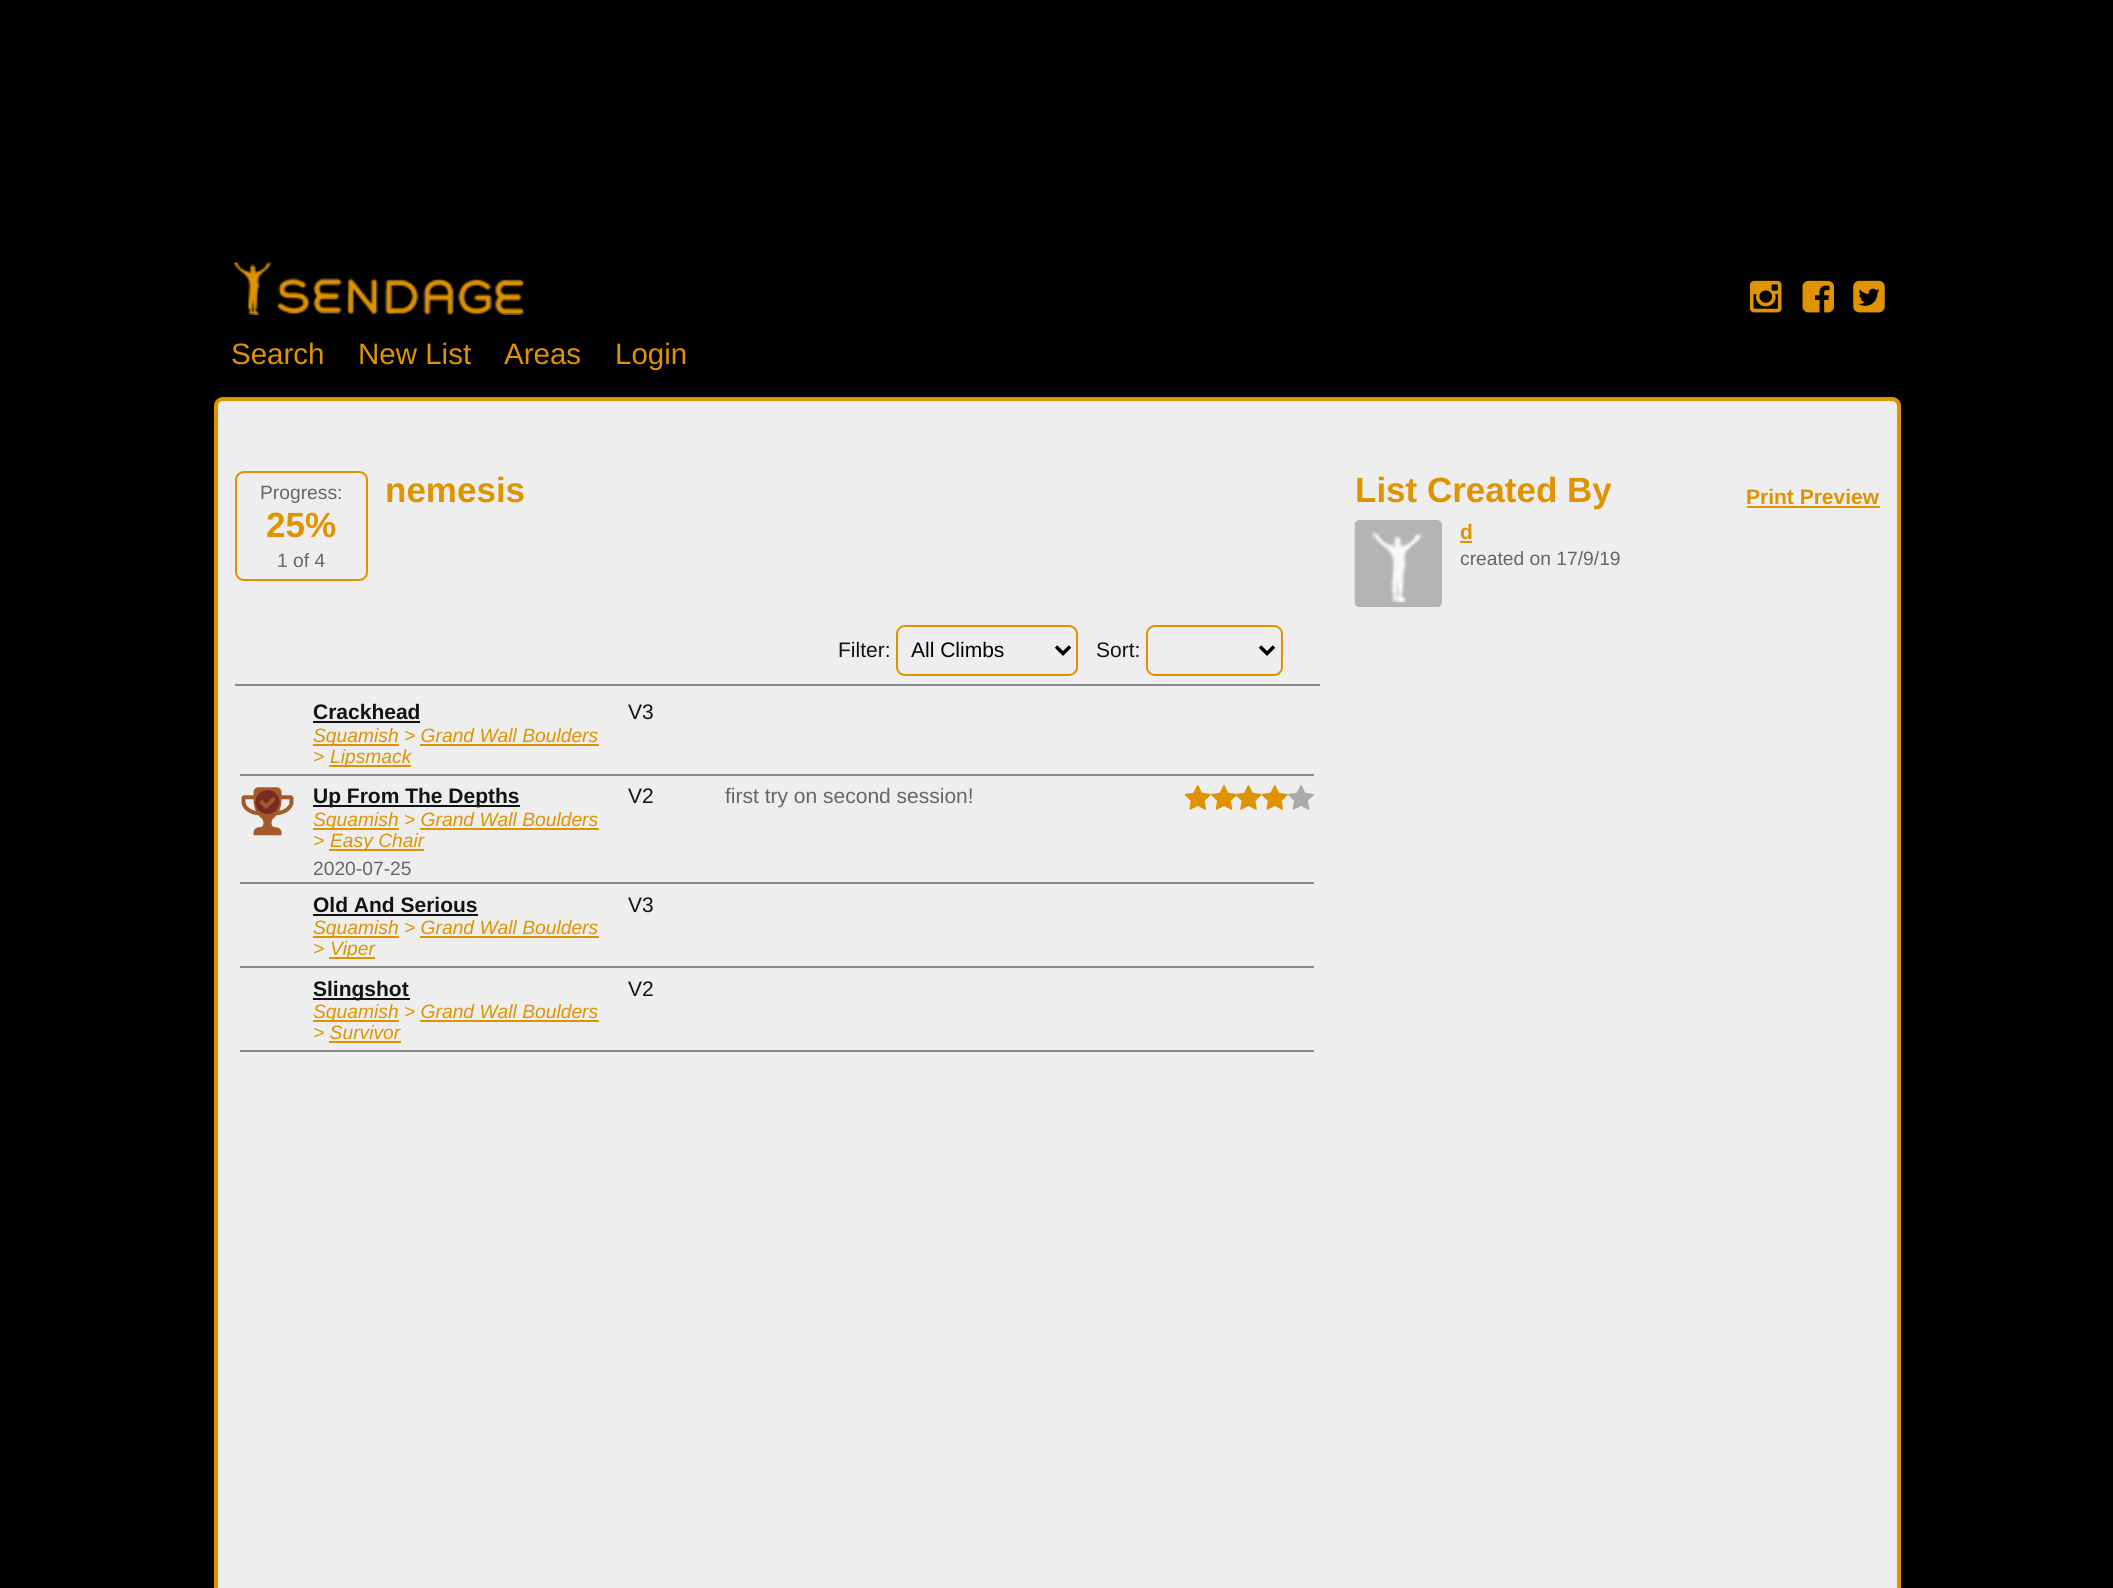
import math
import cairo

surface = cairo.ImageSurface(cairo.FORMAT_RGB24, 2113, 1588)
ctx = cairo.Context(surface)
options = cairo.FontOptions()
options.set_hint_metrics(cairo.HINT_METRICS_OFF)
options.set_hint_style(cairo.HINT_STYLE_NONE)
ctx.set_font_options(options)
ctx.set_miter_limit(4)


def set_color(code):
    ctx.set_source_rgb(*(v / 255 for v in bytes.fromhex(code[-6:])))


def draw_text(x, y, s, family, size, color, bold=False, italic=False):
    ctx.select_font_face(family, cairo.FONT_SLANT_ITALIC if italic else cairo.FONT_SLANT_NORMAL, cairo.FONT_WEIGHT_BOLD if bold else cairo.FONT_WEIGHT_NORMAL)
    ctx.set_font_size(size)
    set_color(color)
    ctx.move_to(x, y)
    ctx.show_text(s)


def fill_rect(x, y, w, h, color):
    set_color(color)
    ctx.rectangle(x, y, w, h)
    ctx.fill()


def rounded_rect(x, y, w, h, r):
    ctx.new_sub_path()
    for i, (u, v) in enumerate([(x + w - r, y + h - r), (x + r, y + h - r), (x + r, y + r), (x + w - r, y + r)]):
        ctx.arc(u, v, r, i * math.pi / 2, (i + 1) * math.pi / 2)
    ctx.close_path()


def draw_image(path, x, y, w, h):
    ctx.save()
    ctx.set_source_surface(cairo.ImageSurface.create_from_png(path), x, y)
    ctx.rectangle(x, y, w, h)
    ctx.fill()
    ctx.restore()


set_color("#000000")
ctx.paint()
draw_image("assets/img1.png", 1750, 280, 32, 33)
draw_image("assets/img2.png", 1802, 280, 32, 33)
draw_image("assets/img3.png", 1853, 280, 32, 33)
draw_image("assets/img4.png", 234, 262, 290, 53)
draw_text(231, 364, "Search", "Liberation Sans", 29.5, "#df9300")
draw_text(358, 364, "New List", "Liberation Sans", 29.5, "#df9300")
draw_text(504, 364, "Areas", "Liberation Sans", 29.5, "#df9300")
draw_text(615, 364, "Login", "Liberation Sans", 29.5, "#df9300")
set_color("#eeeeee")
rounded_rect(216, 399, 1683, 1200, 7)
ctx.fill_preserve()
set_color("#df9300")
ctx.set_line_width(4)
ctx.stroke()
rounded_rect(236, 472, 131, 108, 8)
ctx.set_line_width(2)
ctx.stroke()
draw_text(260, 499, "Progress:", "Liberation Sans", 19.25, "#666666")
draw_text(266, 537, "25%", "Liberation Sans", 35, "#df9300", bold=True)
draw_text(277, 567, "1 of 4", "Liberation Sans", 19.25, "#666666")
draw_text(385, 502, "nemesis", "Liberation Sans", 35, "#df9300", bold=True)
draw_text(838, 657, "Filter:", "Liberation Sans", 21, "#141313")
rounded_rect(897, 626, 180, 49, 8)
set_color("#df9300")
ctx.stroke()
ctx.new_path()
ctx.move_to(1056, 646.5)
ctx.line_to(1063, 653.5)
ctx.line_to(1070, 646.5)
set_color("#000000")
ctx.set_line_width(3.5)
ctx.stroke()
draw_text(911, 657, "All Climbs", "Liberation Sans", 21, "#000000")
draw_text(1096, 657, "Sort:", "Liberation Sans", 21, "#141313")
rounded_rect(1147, 626, 135, 49, 8)
set_color("#df9300")
ctx.set_line_width(2)
ctx.stroke()
ctx.new_path()
ctx.move_to(1260, 646.5)
ctx.line_to(1267, 653.5)
ctx.line_to(1274, 646.5)
set_color("#000000")
ctx.set_line_width(3.5)
ctx.stroke()
fill_rect(235, 684, 1085, 2, "#888888")
fill_rect(240, 774, 1074, 2, "#888888")
draw_text(313, 719, "Crackhead", "Liberation Sans", 21, "#141313", bold=True)
fill_rect(313, 721, 107, 2, "#141313")
fill_rect(313, 744, 86, 2, "#df9300")
draw_text(313, 742, "Squamish > Grand Wall Boulders", "Liberation Sans", 19.25, "#df9300", italic=True)
fill_rect(420, 744, 179, 2, "#df9300")
draw_text(313, 763, ">", "Liberation Sans", 19.25, "#df9300", italic=True)
fill_rect(329, 765, 82, 2, "#df9300")
draw_text(330, 763, "Lipsmack", "Liberation Sans", 19.25, "#df9300", italic=True)
draw_text(628, 719, "V3", "Liberation Sans", 21, "#141313")
fill_rect(240, 882, 1074, 2, "#888888")
draw_image("assets/img5.png", 241, 787, 53, 49)
draw_image("assets/img6.png", 255, 790, 25, 24)
fill_rect(313, 805, 207, 2, "#141313")
draw_text(313, 803, "Up From The Depths", "Liberation Sans", 21, "#141313", bold=True)
fill_rect(313, 828, 86, 2, "#df9300")
draw_text(313, 826, "Squamish > Grand Wall Boulders", "Liberation Sans", 19.25, "#df9300", italic=True)
fill_rect(420, 828, 179, 2, "#df9300")
draw_text(313, 847, ">", "Liberation Sans", 19.25, "#df9300", italic=True)
fill_rect(329, 849, 95, 2, "#df9300")
draw_text(330, 847, "Easy Chair", "Liberation Sans", 19.25, "#df9300", italic=True)
draw_text(313, 875, "2020-07-25", "Liberation Sans", 19.25, "#666666")
draw_text(628, 803, "V2", "Liberation Sans", 21, "#141313")
draw_text(725, 803, "first try on second session!", "Liberation Sans", 21, "#666666")
draw_image("assets/img7.png", 1184, 785, 27, 25)
draw_image("assets/img8.png", 1211, 785, 26, 25)
draw_image("assets/img9.png", 1236, 785, 26, 25)
draw_image("assets/img10.png", 1261, 785, 27, 25)
draw_image("assets/img11.png", 1288, 785, 26, 25)
fill_rect(240, 966, 1074, 2, "#888888")
draw_text(313, 912, "Old And Serious", "Liberation Sans", 21, "#141313", bold=True)
fill_rect(313, 914, 165, 2, "#141313")
fill_rect(313, 936, 86, 2, "#df9300")
draw_text(313, 934, "Squamish > Grand Wall Boulders", "Liberation Sans", 19.25, "#df9300", italic=True)
fill_rect(420, 936, 179, 2, "#df9300")
draw_text(313, 955, ">", "Liberation Sans", 19.25, "#df9300", italic=True)
fill_rect(329, 957, 46, 2, "#df9300")
draw_text(330, 955, "Viper", "Liberation Sans", 19.25, "#df9300", italic=True)
draw_text(628, 912, "V3", "Liberation Sans", 21, "#141313")
fill_rect(240, 1050, 1074, 2, "#888888")
fill_rect(313, 998, 97, 2, "#141313")
draw_text(313, 996, "Slingshot", "Liberation Sans", 21, "#141313", bold=True)
fill_rect(313, 1020, 86, 2, "#df9300")
draw_text(313, 1018, "Squamish > Grand Wall Boulders", "Liberation Sans", 19.25, "#df9300", italic=True)
fill_rect(420, 1020, 179, 2, "#df9300")
draw_text(313, 1039, "> Survivor", "Liberation Sans", 19.25, "#df9300", italic=True)
fill_rect(329, 1041, 72, 2, "#df9300")
draw_text(628, 996, "V2", "Liberation Sans", 21, "#141313")
draw_text(1355, 502, "List Created By", "Liberation Sans", 35, "#df9300", bold=True)
draw_text(1746, 504, "Print Preview", "Liberation Sans", 21, "#df9300", bold=True)
fill_rect(1747, 506, 133, 2, "#df9300")
draw_image("assets/img12.png", 1354, 520, 88, 87)
draw_text(1460, 539, "d", "Liberation Sans", 21, "#df9300", bold=True)
fill_rect(1460, 541, 12, 2, "#df9300")
draw_text(1460, 565, "created on 17/9/19", "Liberation Sans", 19.25, "#666666")
surface.write_to_png("output.png")
